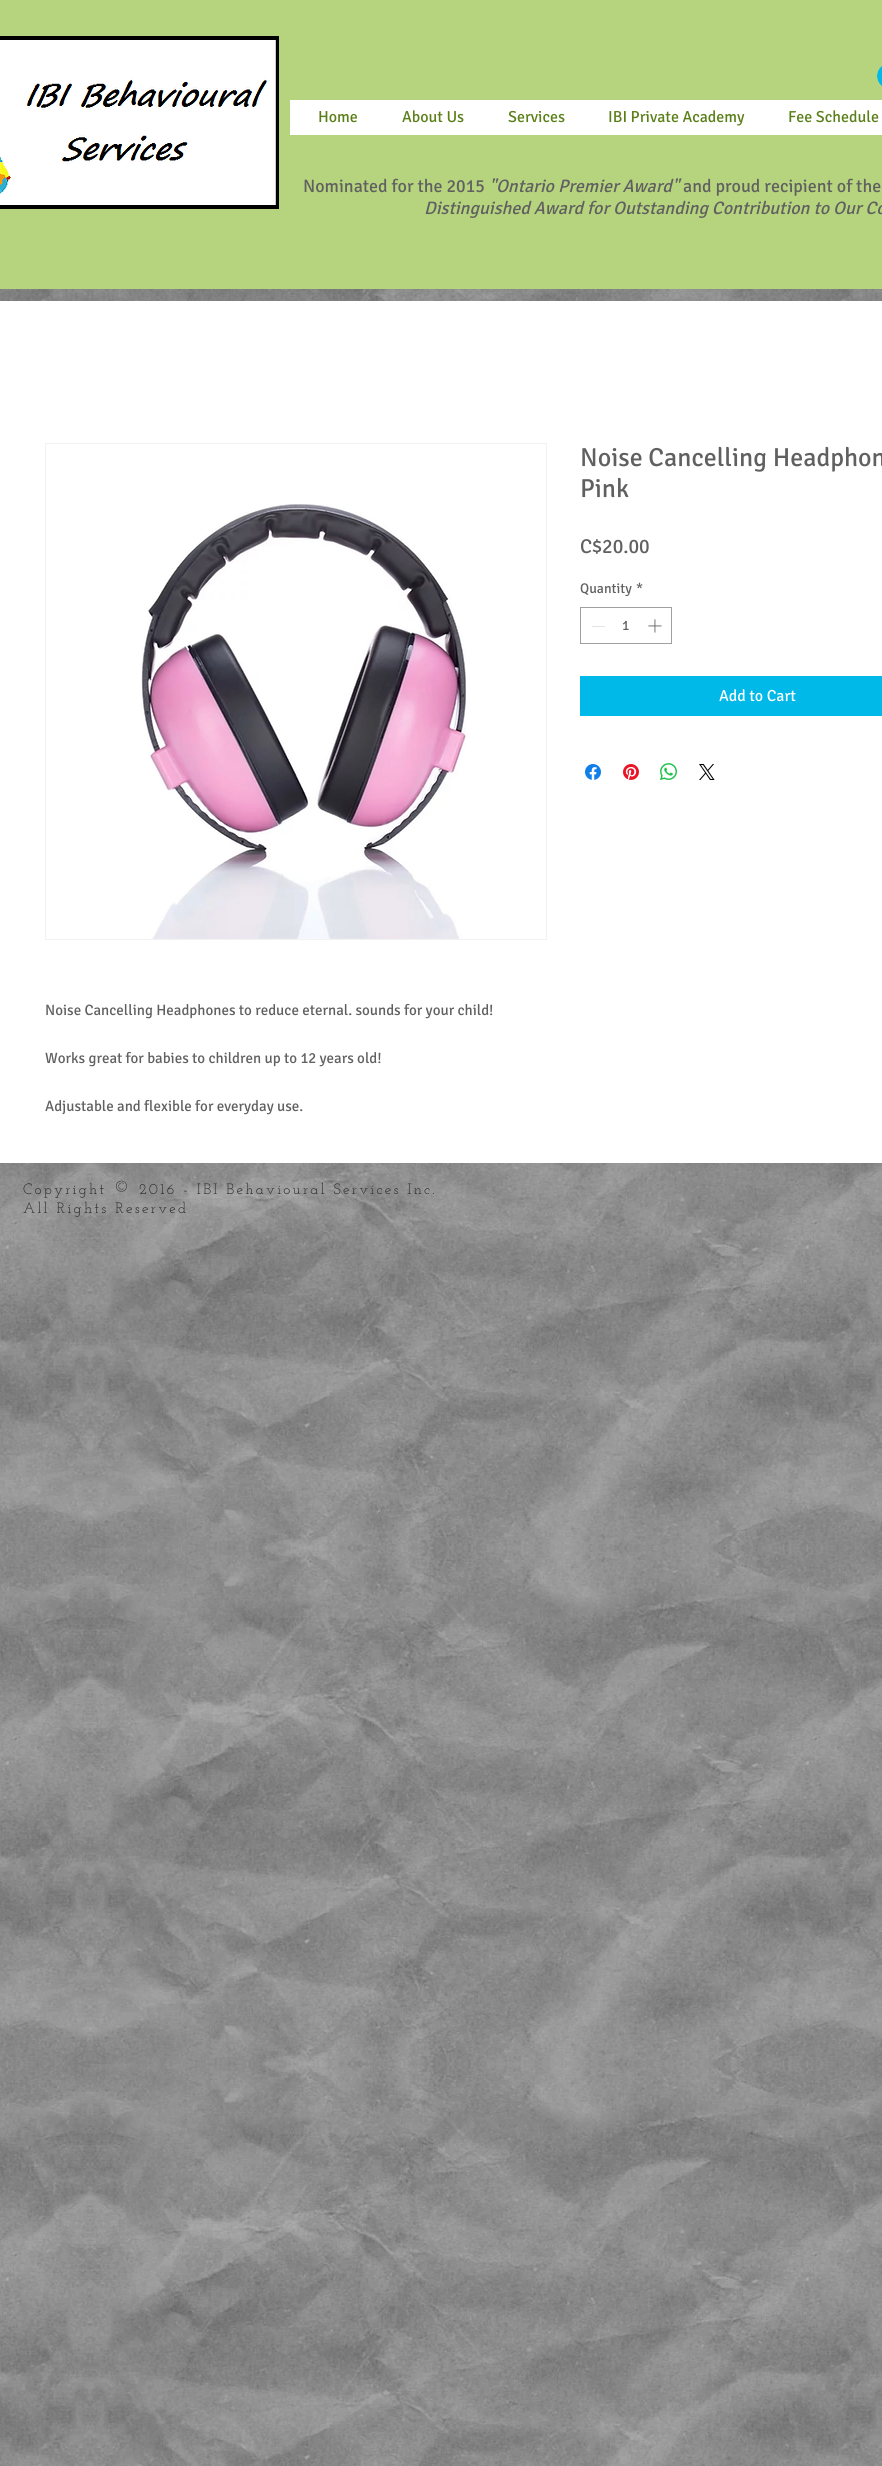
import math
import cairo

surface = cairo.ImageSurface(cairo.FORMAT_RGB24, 882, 2466)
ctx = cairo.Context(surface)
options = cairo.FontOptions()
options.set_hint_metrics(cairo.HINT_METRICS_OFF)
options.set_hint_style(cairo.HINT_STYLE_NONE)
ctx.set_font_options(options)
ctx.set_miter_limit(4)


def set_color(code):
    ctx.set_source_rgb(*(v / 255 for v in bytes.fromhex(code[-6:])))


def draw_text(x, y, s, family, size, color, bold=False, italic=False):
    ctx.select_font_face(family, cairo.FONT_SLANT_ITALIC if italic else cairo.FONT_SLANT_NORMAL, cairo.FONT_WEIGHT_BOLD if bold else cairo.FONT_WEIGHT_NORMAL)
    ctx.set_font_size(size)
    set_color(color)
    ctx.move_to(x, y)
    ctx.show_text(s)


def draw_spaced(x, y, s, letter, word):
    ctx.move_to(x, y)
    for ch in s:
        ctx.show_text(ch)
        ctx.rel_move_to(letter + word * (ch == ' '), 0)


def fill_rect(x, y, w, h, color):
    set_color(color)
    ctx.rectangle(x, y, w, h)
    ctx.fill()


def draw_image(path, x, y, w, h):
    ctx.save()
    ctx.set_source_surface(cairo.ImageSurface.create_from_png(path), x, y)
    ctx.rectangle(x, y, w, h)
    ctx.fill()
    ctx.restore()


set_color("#ffffff")
ctx.paint()
fill_rect(0, 0, 882, 289, "#b6d47e")
draw_image("assets/img1.png", 0, 36, 279, 173)
draw_image("assets/img2.png", 877, 66, 5, 20)
fill_rect(290, 100, 592, 35, "#ffffff")
draw_text(318, 122, "Home", "Signika", 16, "#5b7f18")
draw_text(402, 122, "About Us", "Signika", 16, "#5b7f18")
draw_text(508, 122, "Services", "Signika", 16, "#5b7f18")
draw_text(608, 122, "IBI Private Academy", "Signika", 16, "#5b7f18")
draw_text(788, 122, "Fee Schedule", "Signika", 16, "#5b7f18")
draw_text(303, 192, "Nominated for the 2015", "Signika", 18, "#606060")
draw_text(489, 192, "\"Ontario Premier Award\"", "Signika", 18, "#606060", italic=True)
draw_text(683, 192, "and proud recipient of the", "Signika", 18, "#606060")
draw_text(424, 214, "Distinguished Award for Outstanding Contribution to Our Co", "Signika", 18, "#606060", italic=True)
draw_image("assets/img9.png", 0, 289, 882, 2177)
fill_rect(0, 301, 882, 862, "#ffffff")
draw_text(580, 466, "Noise Cancelling Headphon", "Signika", 26, "#606060")
draw_text(580, 497, "Pink", "Signika", 26, "#606060")
draw_text(580, 553, "C$20.00", "Signika", 20, "#606060")
draw_text(580, 593, "Quantity", "Signika", 14, "#606060")
draw_text(636, 593, "*", "Signika", 14, "#606060")
ctx.rectangle(580.5, 607.5, 91, 36)
set_color("#a0a0a0")
ctx.set_line_width(1)
ctx.stroke()
fill_rect(592, 626, 13, 1, "#e3e3e3")
draw_text(622, 630, "1", "Signika", 14, "#606060")
draw_image("assets/img3.png", 648, 619, 14, 14)
fill_rect(580, 676, 302, 40, "#00b9e8")
draw_text(719, 701, "Add to Cart", "Signika", 16, "#ffffff")
draw_image("assets/img4.png", 585, 764, 16, 16)
draw_image("assets/img5.png", 623, 764, 16, 16)
draw_image("assets/img6.png", 660, 763, 17, 17)
draw_image("assets/img7.png", 699, 764, 16, 16)
ctx.rectangle(45.5, 443.5, 501, 496)
set_color("#f2f2f2")
ctx.stroke()
draw_image("assets/img8.png", 141, 504, 325, 435)
draw_text(45, 1015, "Noise Cancelling Headphones to reduce eternal. sounds for your child!", "Signika", 15, "#606060")
draw_text(45, 1063, "Works great for babies to children up to 12 years old!", "Signika", 15, "#606060")
draw_text(45, 1111, "Adjustable and flexible for everyday use.", "Signika", 15, "#606060")
ctx.select_font_face("Josefin Slab")
set_color("#292929")
draw_spaced(23, 1194, "Copyright", 2.25, 0)
ctx.set_font_size(21)
draw_spaced(113, 1194, "©", 2.25, 0)
ctx.set_font_size(15)
draw_spaced(139, 1194, "2016 - IBI Behavioural Services Inc.", 2.25, 0)
draw_spaced(23, 1213, "All Rights Reserved", 2.25, 0)
surface.write_to_png("output.png")
